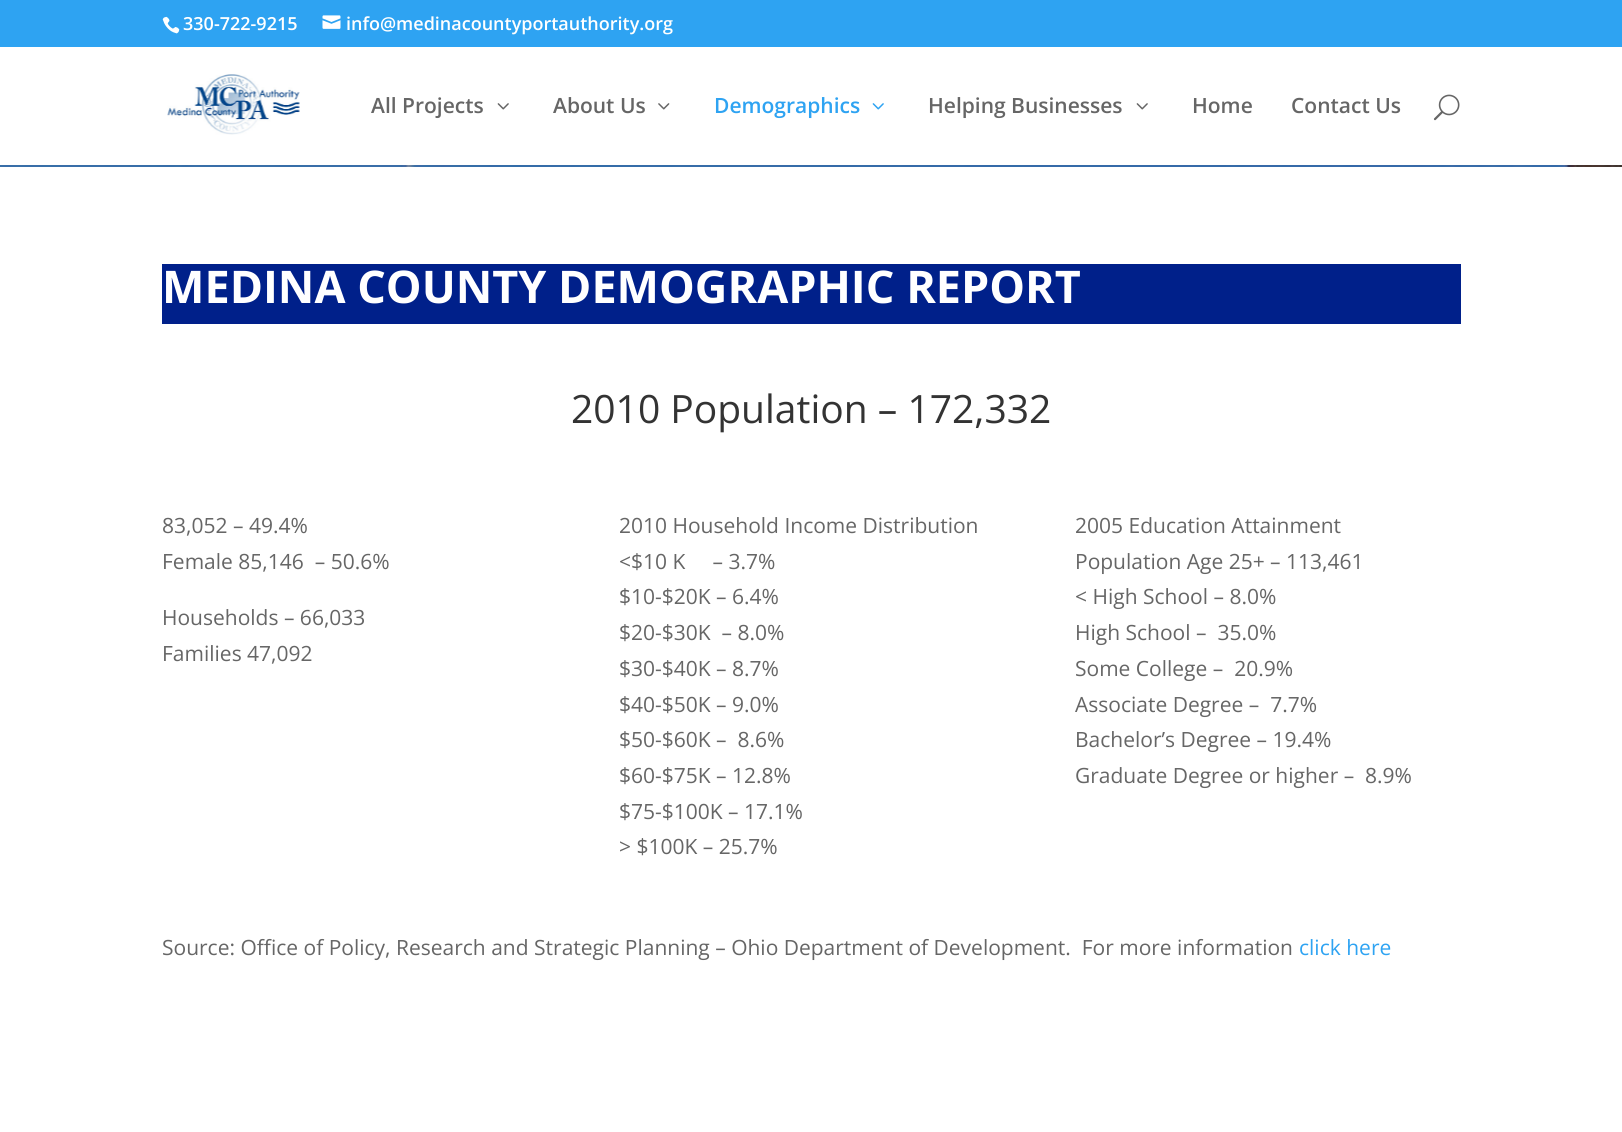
import math
import cairo

surface = cairo.ImageSurface(cairo.FORMAT_RGB24, 1622, 1132)
ctx = cairo.Context(surface)
options = cairo.FontOptions()
options.set_hint_metrics(cairo.HINT_METRICS_OFF)
options.set_hint_style(cairo.HINT_STYLE_NONE)
ctx.set_font_options(options)
ctx.set_miter_limit(4)


def set_color(code):
    ctx.set_source_rgb(*(v / 255 for v in bytes.fromhex(code[-6:])))


def draw_text(x, y, s, family, size, color, bold=False, italic=False):
    ctx.select_font_face(family, cairo.FONT_SLANT_ITALIC if italic else cairo.FONT_SLANT_NORMAL, cairo.FONT_WEIGHT_BOLD if bold else cairo.FONT_WEIGHT_NORMAL)
    ctx.set_font_size(size)
    set_color(color)
    ctx.move_to(x, y)
    ctx.show_text(s)


def fill_rect(x, y, w, h, color):
    set_color(color)
    ctx.rectangle(x, y, w, h)
    ctx.fill()


def draw_image(path, x, y, w, h):
    ctx.save()
    ctx.set_source_surface(cairo.ImageSurface.create_from_png(path), x, y)
    ctx.rectangle(x, y, w, h)
    ctx.fill()
    ctx.restore()


set_color("#ffffff")
ctx.paint()
draw_image("assets/img1.png", 0, 165, 1622, 2)
fill_rect(0, 0, 1622, 47, "#2ea3f2")
draw_image("assets/img2.png", 162, 16, 18, 18)
draw_text(183, 30, "330-722-9215", "Open Sans SemiBold", 18, "#ffffff")
draw_image("assets/img3.png", 322, 15, 19, 14)
draw_text(346, 30, "info@medinacountyportauthority.org", "Open Sans SemiBold", 18, "#ffffff")
ctx.set_source_rgba(0, 0, 0, 0.1)
ctx.rectangle(0, 165, 1622, 2)
ctx.fill()
draw_image("assets/img4.png", 167, 74, 133, 61)
draw_text(371, 113, "All Projects", "Open Sans SemiBold", 21, "#666666")
draw_image("assets/img5.png", 497, 103, 12, 7)
draw_text(553, 113, "About Us", "Open Sans SemiBold", 21, "#666666")
draw_image("assets/img6.png", 658, 103, 12, 7)
draw_text(714, 113, "Demographics", "Open Sans SemiBold", 21, "#2ea3f2")
draw_image("assets/img7.png", 872, 103, 12, 7)
draw_text(928, 113, "Helping Businesses", "Open Sans SemiBold", 21, "#666666")
draw_image("assets/img5.png", 1136, 103, 12, 7)
draw_text(1192, 113, "Home", "Open Sans SemiBold", 21, "#666666")
draw_text(1291, 113, "Contact Us", "Open Sans SemiBold", 21, "#666666")
draw_image("assets/img8.png", 1433, 94, 27, 27)
fill_rect(162, 264, 1299, 60, "#00208a")
draw_text(162, 303, "MEDINA COUNTY DEMOGRAPHIC REPORT", "Open Sans", 45, "#ffffff", bold=True)
draw_text(571, 423, "2010 Population – 172,332", "Open Sans", 39, "#333333")
draw_text(162, 533, "83,052 – 49.4%", "Open Sans", 21, "#666666")
draw_text(162, 569, "Female 85,146  – 50.6%", "Open Sans", 21, "#666666")
draw_text(162, 625, "Households – 66,033", "Open Sans", 21, "#666666")
draw_text(162, 661, "Families 47,092", "Open Sans", 21, "#666666")
draw_text(619, 533, "2010 Household Income Distribution", "Open Sans", 21, "#666666")
draw_text(619, 569, "<$10 K     – 3.7%", "Open Sans", 21, "#666666")
draw_text(619, 604, "$10-$20K – 6.4%", "Open Sans", 21, "#666666")
draw_text(619, 640, "$20-$30K  – 8.0%", "Open Sans", 21, "#666666")
draw_text(619, 676, "$30-$40K – 8.7%", "Open Sans", 21, "#666666")
draw_text(619, 712, "$40-$50K – 9.0%", "Open Sans", 21, "#666666")
draw_text(619, 747, "$50-$60K –  8.6%", "Open Sans", 21, "#666666")
draw_text(619, 783, "$60-$75K – 12.8%", "Open Sans", 21, "#666666")
draw_text(619, 819, "$75-$100K – 17.1%", "Open Sans", 21, "#666666")
draw_text(619, 854, "> $100K – 25.7%", "Open Sans", 21, "#666666")
draw_text(1075, 533, "2005 Education Attainment", "Open Sans", 21, "#666666")
draw_text(1075, 569, "Population Age 25+ – 113,461", "Open Sans", 21, "#666666")
draw_text(1075, 604, "< High School – 8.0%", "Open Sans", 21, "#666666")
draw_text(1075, 640, "High School –  35.0%", "Open Sans", 21, "#666666")
draw_text(1075, 676, "Some College –  20.9%", "Open Sans", 21, "#666666")
draw_text(1075, 712, "Associate Degree –  7.7%", "Open Sans", 21, "#666666")
draw_text(1075, 747, "Bachelor’s Degree – 19.4%", "Open Sans", 21, "#666666")
draw_text(1075, 783, "Graduate Degree or higher –  8.9%", "Open Sans", 21, "#666666")
draw_text(162, 955, "Source: Office of Policy, Research and Strategic Planning – Ohio Department of Development.  For more information", "Open Sans", 21, "#666666")
draw_text(1299, 955, "click here", "Open Sans", 21, "#2ea3f2")
surface.write_to_png("output.png")
